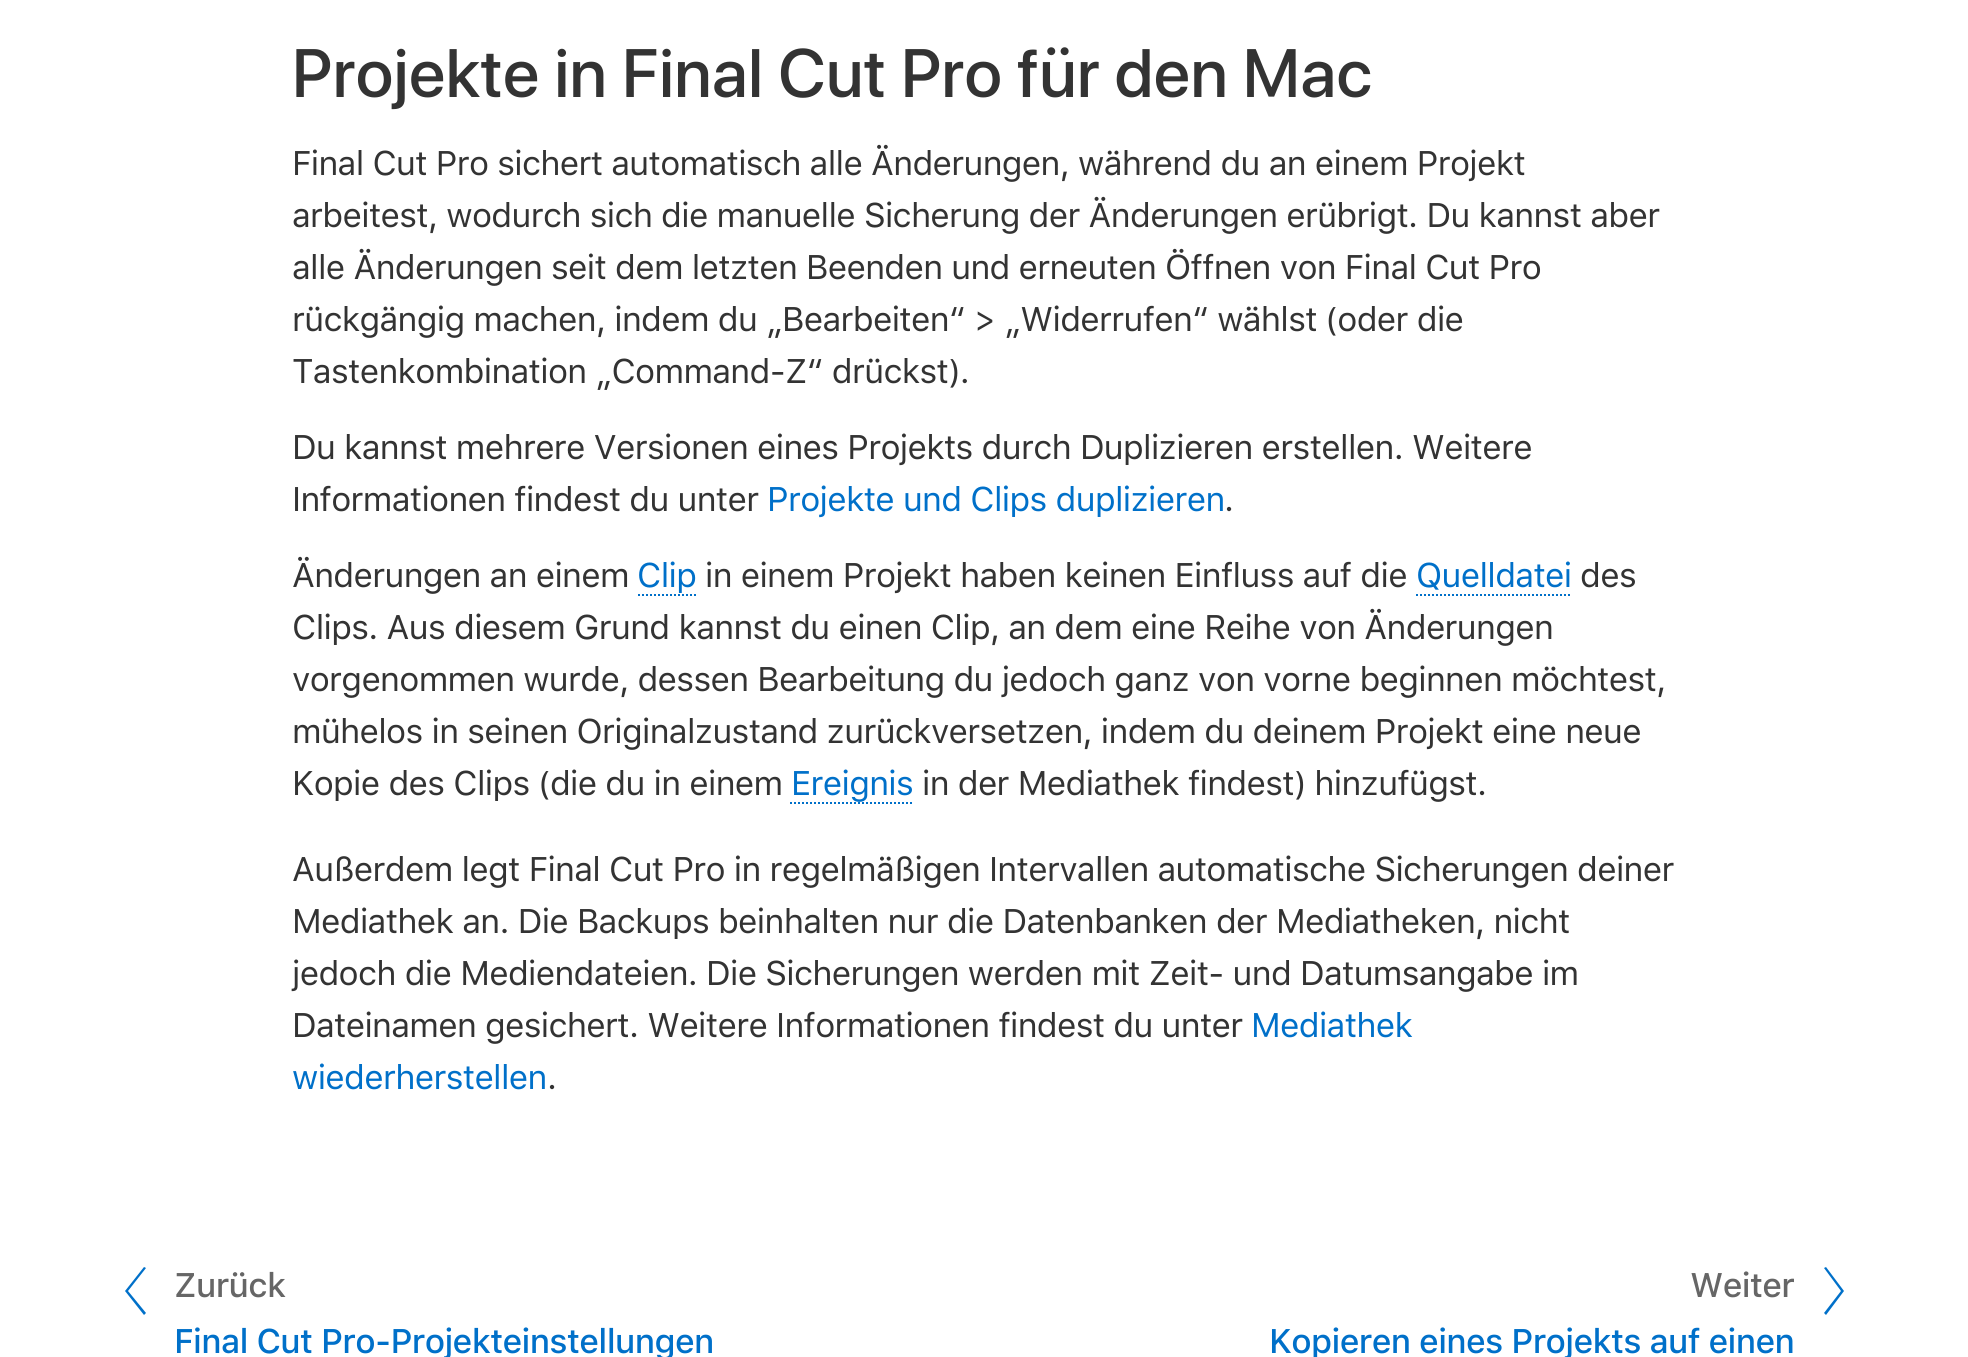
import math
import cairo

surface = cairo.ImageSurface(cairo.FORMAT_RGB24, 1968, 1357)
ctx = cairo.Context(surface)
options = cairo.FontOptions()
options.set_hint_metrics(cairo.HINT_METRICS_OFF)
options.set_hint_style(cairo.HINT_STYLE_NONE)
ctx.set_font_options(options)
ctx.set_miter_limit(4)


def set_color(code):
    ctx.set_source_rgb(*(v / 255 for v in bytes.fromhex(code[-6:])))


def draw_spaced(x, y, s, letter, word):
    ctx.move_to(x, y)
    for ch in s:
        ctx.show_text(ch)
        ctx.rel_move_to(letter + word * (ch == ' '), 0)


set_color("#ffffff")
ctx.paint()
ctx.select_font_face("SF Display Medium")
ctx.set_font_size(68)
set_color("#333333")
draw_spaced(292, 97, "Projekte in Final Cut Pro für den Mac", 0.7, 0)
ctx.select_font_face("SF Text")
ctx.set_font_size(34)
draw_spaced(292, 175, "Final Cut Pro sichert automatisch alle Änderungen, während du an einem Projekt", -0.7, 0)
draw_spaced(292, 227, "arbeitest, wodurch sich die manuelle Sicherung der Änderungen erübrigt. Du kannst aber", -0.7, 0)
draw_spaced(292, 279, "alle Änderungen seit dem letzten Beenden und erneuten Öffnen von Final Cut Pro", -0.7, 0)
draw_spaced(292, 331, "rückgängig machen, indem du „Bearbeiten“ > „Widerrufen“ wählst (oder die", -0.7, 0)
draw_spaced(292, 383, "Tastenkombination „Command-Z“ drückst).", -0.7, 0)
draw_spaced(292, 459, "Du kannst mehrere Versionen eines Projekts durch Duplizieren erstellen. Weitere", -0.7, 0)
draw_spaced(292, 511, "Informationen findest du unter", -0.7, 0)
set_color("#0070c9")
draw_spaced(767, 511, "Projekte und Clips duplizieren", -0.7, 0)
set_color("#333333")
draw_spaced(1224, 511, ".", -0.7, 0)
draw_spaced(292, 587, "Änderungen an einem", -0.7, 0)
set_color("#0070c9")
draw_spaced(637, 587, "Clip", -0.7, 0)
ctx.new_path()
ctx.move_to(638, 595)
ctx.line_to(696, 595)
ctx.set_dash([2, 2])
ctx.stroke()
set_color("#333333")
draw_spaced(705, 587, "in einem Projekt haben keinen Einfluss auf die", -0.7, 0)
set_color("#0070c9")
draw_spaced(1416, 587, "Quelldatei", -0.7, 0)
ctx.new_path()
ctx.move_to(1416, 595)
ctx.line_to(1570, 595)
ctx.stroke()
set_color("#333333")
draw_spaced(1580, 587, "des", -0.7, 0)
draw_spaced(292, 639, "Clips. Aus diesem Grund kannst du einen Clip, an dem eine Reihe von Änderungen", -0.7, 0)
draw_spaced(292, 691, "vorgenommen wurde, dessen Bearbeitung du jedoch ganz von vorne beginnen möchtest,", -0.7, 0)
draw_spaced(292, 743, "mühelos in seinen Originalzustand zurückversetzen, indem du deinem Projekt eine neue", -0.7, 0)
draw_spaced(292, 795, "Kopie des Clips (die du in einem", -0.7, 0)
set_color("#0070c9")
draw_spaced(791, 795, "Ereignis", -0.7, 0)
ctx.new_path()
ctx.move_to(790, 803)
ctx.line_to(912, 803)
ctx.stroke()
set_color("#333333")
draw_spaced(922, 795, "in der Mediathek findest) hinzufügst.", -0.7, 0)
draw_spaced(292, 881, "Außerdem legt Final Cut Pro in regelmäßigen Intervallen automatische Sicherungen deiner", -0.7, 0)
draw_spaced(292, 933, "Mediathek an. Die Backups beinhalten nur die Datenbanken der Mediatheken, nicht", -0.7, 0)
draw_spaced(292, 985, "jedoch die Mediendateien. Die Sicherungen werden mit Zeit- und Datumsangabe im", -0.7, 0)
draw_spaced(292, 1037, "Dateinamen gesichert. Weitere Informationen findest du unter", -0.7, 0)
set_color("#0070c9")
draw_spaced(1251, 1037, "Mediathek", -0.7, 0)
draw_spaced(292, 1089, "wiederherstellen", -0.7, 0)
set_color("#333333")
draw_spaced(547, 1089, ".", -0.7, 0)
set_color("#0070c9")
ctx.new_path()
ctx.move_to(144, 1267)
ctx.line_to(125, 1291)
ctx.line_to(144, 1315)
ctx.line_to(146, 1313)
ctx.line_to(128, 1291)
ctx.line_to(146, 1268)
ctx.close_path()
ctx.fill()
ctx.select_font_face("SF Text Medium")
set_color("#666666")
draw_spaced(174, 1297, "Zurück", -0.7, 0)
set_color("#0070c9")
draw_spaced(174, 1353, "Final Cut Pro-Projekteinstellungen", -0.7, 0)
set_color("#666666")
draw_spaced(1690, 1297, "Weiter", -0.7, 0)
set_color("#0070c9")
ctx.new_path()
ctx.move_to(1824, 1268)
ctx.line_to(1841, 1291)
ctx.line_to(1824, 1313)
ctx.line_to(1826, 1315)
ctx.line_to(1844, 1291)
ctx.line_to(1826, 1267)
ctx.close_path()
ctx.fill()
draw_spaced(1269, 1353, "Kopieren eines Projekts auf einen", -0.7, 0)
surface.write_to_png("output.png")
